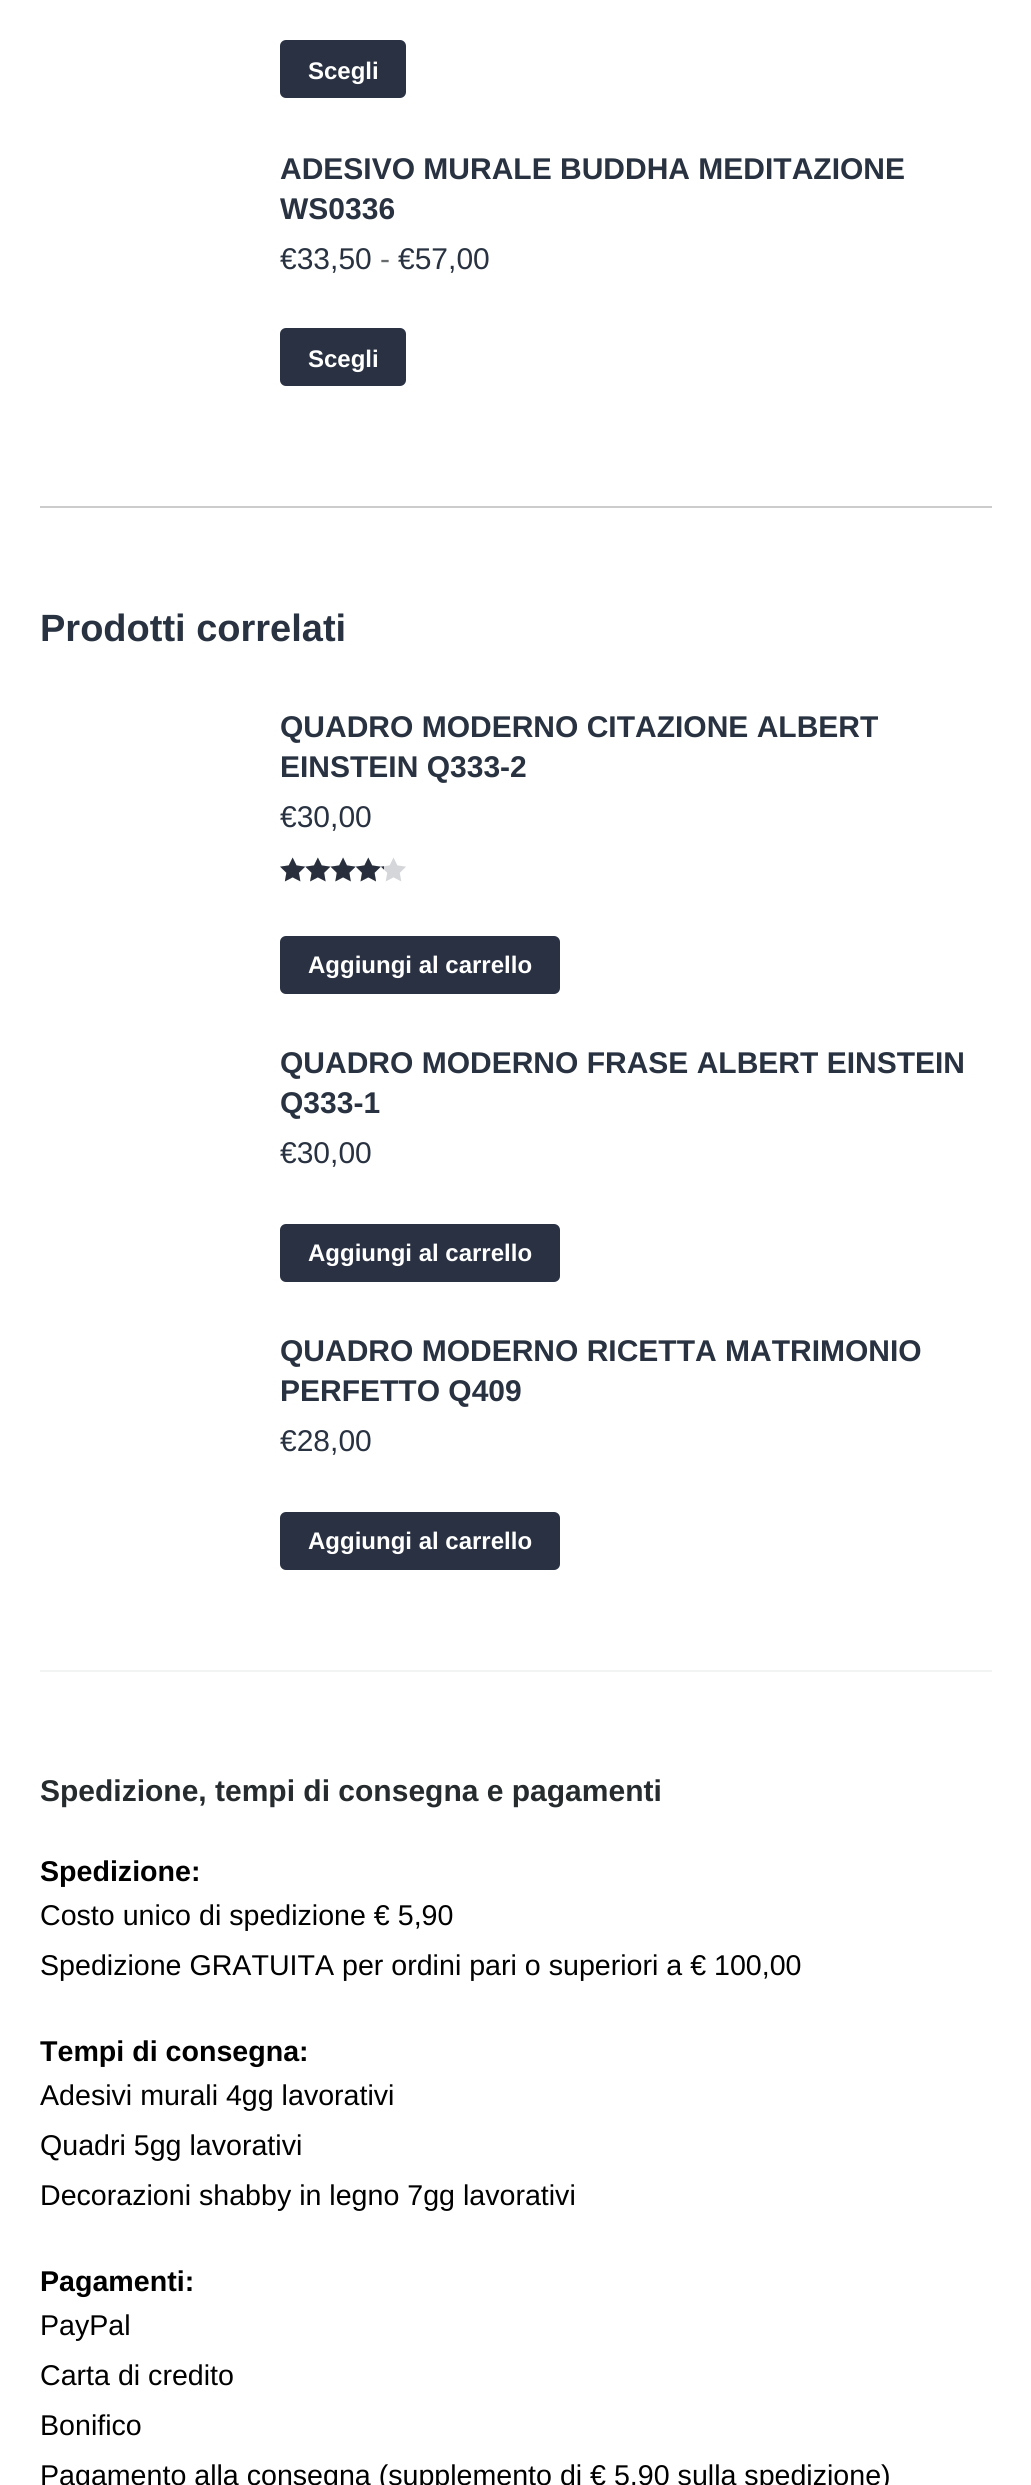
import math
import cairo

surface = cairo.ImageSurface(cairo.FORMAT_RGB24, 1031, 2485)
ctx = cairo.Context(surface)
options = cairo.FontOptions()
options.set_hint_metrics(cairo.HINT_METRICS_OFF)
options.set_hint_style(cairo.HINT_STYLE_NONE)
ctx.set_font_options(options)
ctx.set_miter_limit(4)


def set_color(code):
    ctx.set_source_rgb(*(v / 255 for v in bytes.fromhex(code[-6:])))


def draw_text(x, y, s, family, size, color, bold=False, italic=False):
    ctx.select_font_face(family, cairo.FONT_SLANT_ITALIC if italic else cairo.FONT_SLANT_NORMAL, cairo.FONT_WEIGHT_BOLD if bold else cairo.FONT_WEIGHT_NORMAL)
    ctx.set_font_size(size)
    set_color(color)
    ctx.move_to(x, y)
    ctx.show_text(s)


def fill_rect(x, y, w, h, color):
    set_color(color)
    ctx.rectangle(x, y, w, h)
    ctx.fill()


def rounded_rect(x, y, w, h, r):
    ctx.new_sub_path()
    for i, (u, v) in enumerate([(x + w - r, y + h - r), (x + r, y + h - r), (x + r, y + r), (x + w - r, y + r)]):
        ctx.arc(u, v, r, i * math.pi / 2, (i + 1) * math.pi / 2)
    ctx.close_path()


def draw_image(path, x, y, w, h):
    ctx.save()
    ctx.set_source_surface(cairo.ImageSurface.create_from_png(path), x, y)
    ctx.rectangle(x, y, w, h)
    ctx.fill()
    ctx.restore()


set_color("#ffffff")
ctx.paint()
set_color("#293143")
rounded_rect(280, 40, 126, 58, 6)
ctx.fill()
draw_text(308, 79, "Scegli", "Liberation Sans", 24, "#ffffff", bold=True)
draw_text(280, 179, "ADESIVO MURALE BUDDHA MEDITAZIONE", "Liberation Sans", 30, "#293241", bold=True)
draw_text(280, 219, "WS0336", "Liberation Sans", 30, "#293241", bold=True)
draw_text(280, 269, "€33,50", "Liberation Sans", 30, "#293241")
draw_text(380, 269, "-", "Liberation Sans", 30, "#676b6d")
draw_text(398, 269, "€57,00", "Liberation Sans", 30, "#293241")
set_color("#293143")
rounded_rect(280, 328, 126, 58, 6)
ctx.fill()
draw_text(308, 367, "Scegli", "Liberation Sans", 24, "#ffffff", bold=True)
fill_rect(40, 506, 952, 2, "#cccccc")
draw_text(40, 641, "Prodotti correlati", "Liberation Sans", 38, "#293241", bold=True)
draw_text(280, 737, "QUADRO MODERNO CITAZIONE ALBERT", "Liberation Sans", 30, "#293241", bold=True)
draw_text(280, 777, "EINSTEIN Q333-2", "Liberation Sans", 30, "#293241", bold=True)
draw_text(280, 827, "€30,00", "Liberation Sans", 30, "#293241")
draw_image("assets/img1.png", 280, 857, 126, 25)
draw_image("assets/img2.png", 280, 857, 104, 25)
set_color("#293143")
rounded_rect(280, 936, 280, 58, 6)
ctx.fill()
draw_text(308, 973, "Aggiungi al carrello", "Liberation Sans", 24, "#ffffff", bold=True)
draw_text(280, 1073, "QUADRO MODERNO FRASE ALBERT EINSTEIN", "Liberation Sans", 30, "#293241", bold=True)
draw_text(280, 1113, "Q333-1", "Liberation Sans", 30, "#293241", bold=True)
draw_text(280, 1163, "€30,00", "Liberation Sans", 30, "#293241")
set_color("#293143")
rounded_rect(280, 1224, 280, 58, 6)
ctx.fill()
draw_text(308, 1261, "Aggiungi al carrello", "Liberation Sans", 24, "#ffffff", bold=True)
draw_text(280, 1361, "QUADRO MODERNO RICETTA MATRIMONIO", "Liberation Sans", 30, "#293241", bold=True)
draw_text(280, 1401, "PERFETTO Q409", "Liberation Sans", 30, "#293241", bold=True)
draw_text(280, 1451, "€28,00", "Liberation Sans", 30, "#293241")
set_color("#293143")
rounded_rect(280, 1512, 280, 58, 6)
ctx.fill()
draw_text(308, 1549, "Aggiungi al carrello", "Liberation Sans", 24, "#ffffff", bold=True)
fill_rect(40, 1670, 952, 2, "#f2f3f3")
draw_text(40, 1801, "Spedizione, tempi di consegna e pagamenti", "Liberation Sans", 30, "#262b2e", bold=True)
draw_text(40, 1881, "Spedizione:", "Liberation Sans", 28.6, "#000000", bold=True)
draw_text(40, 1925, "Costo unico di spedizione € 5,90", "Liberation Sans", 28.6, "#000000")
draw_text(40, 1975, "Spedizione GRATUITA per ordini pari o superiori a € 100,00", "Liberation Sans", 28.6, "#000000")
draw_text(40, 2061, "Tempi di consegna:", "Liberation Sans", 28.6, "#000000", bold=True)
draw_text(40, 2105, "Adesivi murali 4gg lavorativi", "Liberation Sans", 28.6, "#000000")
draw_text(40, 2155, "Quadri 5gg lavorativi", "Liberation Sans", 28.6, "#000000")
draw_text(40, 2205, "Decorazioni shabby in legno 7gg lavorativi", "Liberation Sans", 28.6, "#000000")
draw_text(40, 2291, "Pagamenti:", "Liberation Sans", 28.6, "#000000", bold=True)
draw_text(40, 2335, "PayPal", "Liberation Sans", 28.6, "#000000")
draw_text(40, 2385, "Carta di credito", "Liberation Sans", 28.6, "#000000")
draw_text(40, 2435, "Bonifico", "Liberation Sans", 28.6, "#000000")
draw_text(40, 2485, "Pagamento alla consegna (supplemento di € 5,90 sulla spedizione)", "Liberation Sans", 28.6, "#000000")
surface.write_to_png("output.png")
